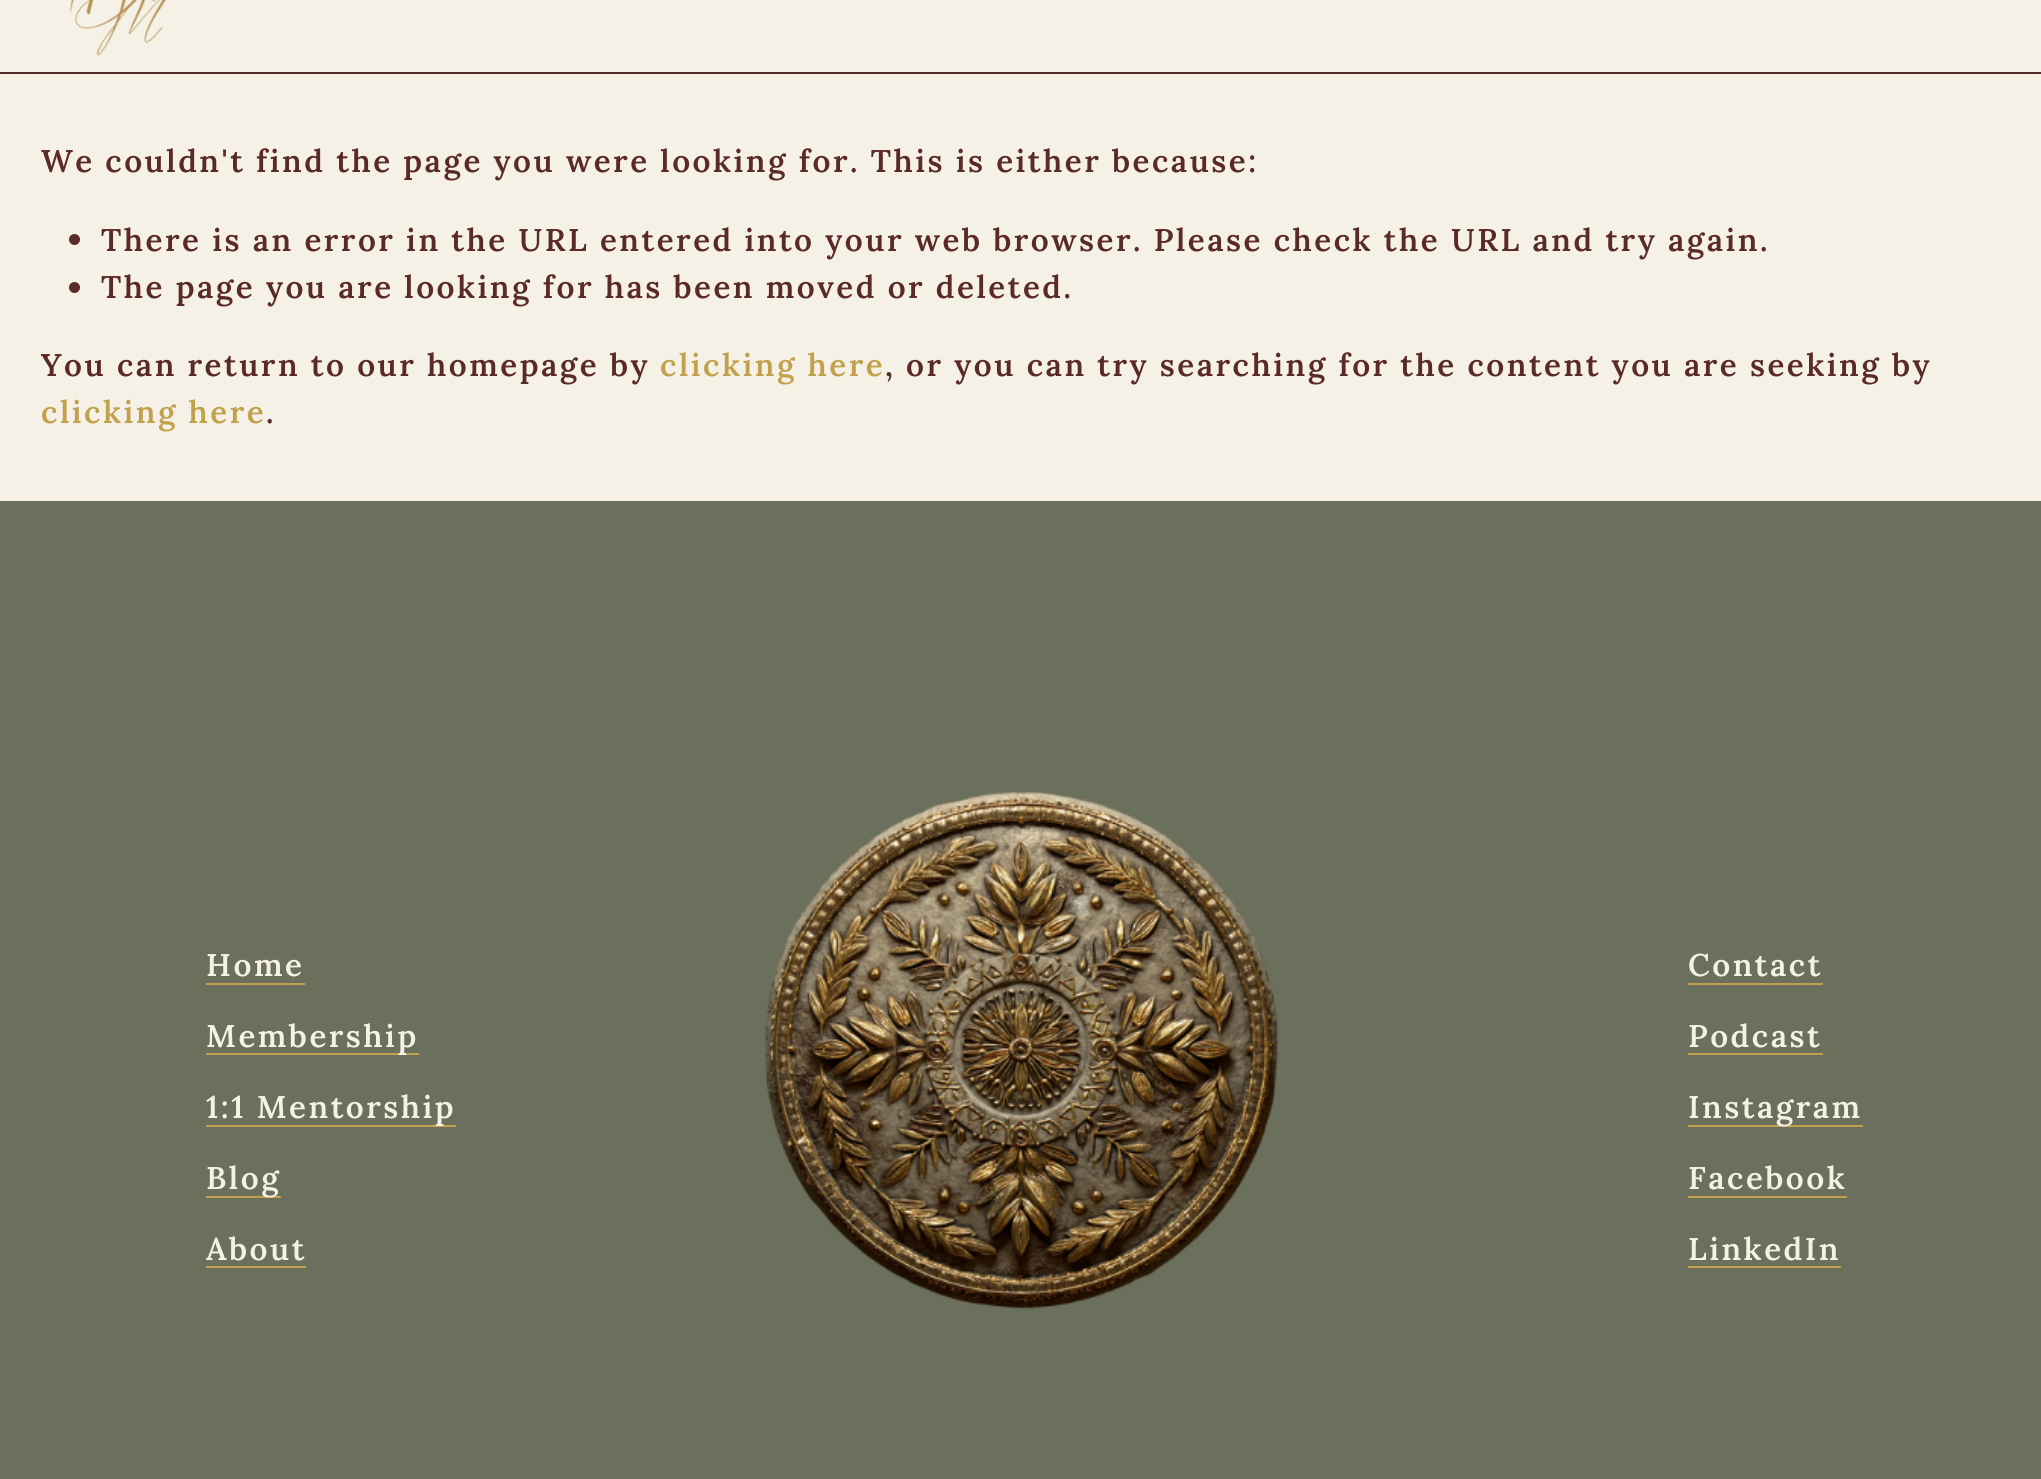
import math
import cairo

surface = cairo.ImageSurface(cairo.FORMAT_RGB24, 2041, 1479)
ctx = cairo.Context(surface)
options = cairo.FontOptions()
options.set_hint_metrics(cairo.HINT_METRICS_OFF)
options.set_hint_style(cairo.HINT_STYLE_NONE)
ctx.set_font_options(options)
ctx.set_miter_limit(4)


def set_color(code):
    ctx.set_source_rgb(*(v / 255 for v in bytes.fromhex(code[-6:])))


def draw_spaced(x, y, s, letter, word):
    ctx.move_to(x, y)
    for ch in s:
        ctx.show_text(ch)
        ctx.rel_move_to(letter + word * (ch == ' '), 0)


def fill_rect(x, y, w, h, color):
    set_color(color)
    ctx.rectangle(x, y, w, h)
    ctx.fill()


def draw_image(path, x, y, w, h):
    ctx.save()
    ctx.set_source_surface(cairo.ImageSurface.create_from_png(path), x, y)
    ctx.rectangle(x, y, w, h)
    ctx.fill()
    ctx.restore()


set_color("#f5f1e6")
ctx.paint()
draw_image("assets/img1.png", 69, 0, 98, 56)
fill_rect(0, 72, 2041, 2, "#5a2a27")
ctx.select_font_face("Lora SemiBold")
ctx.set_font_size(31.35)
draw_spaced(41, 172, "We couldn't find the page you were looking for. This is either because:", 2.5, 0)
ctx.new_path()
ctx.arc(74.5, 239.5, 5.5, 0, 2 * math.pi)
ctx.fill()
draw_spaced(101, 251, "There is an error in the URL entered into your web browser. Please check the URL and try again.", 2.5, 0)
ctx.new_path()
ctx.arc(74.5, 287.5, 5.5, 0, 2 * math.pi)
ctx.fill()
draw_spaced(101, 298, "The page you are looking for has been moved or deleted.", 2.5, 0)
draw_spaced(41, 376, "You can return to our homepage by", 2.5, 0)
set_color("#c2a14d")
draw_spaced(660, 376, "clicking here", 2.5, 0)
set_color("#5a2a27")
draw_spaced(885, 376, ", or you can try searching for the content you are seeking by", 2.5, 0)
set_color("#c2a14d")
draw_spaced(41, 423, "clicking here", 2.5, 0)
set_color("#5a2a27")
draw_spaced(266, 423, ".", 2.5, 0)
fill_rect(0, 501, 2041, 978, "#6b705c")
set_color("#f5f1e6")
draw_spaced(206, 976, "Home", 2.5, 0)
fill_rect(206, 983, 99, 2, "#c2a14d")
fill_rect(206, 1053, 213, 2, "#c2a14d")
set_color("#f5f1e6")
draw_spaced(206, 1047, "Membership", 2.5, 0)
fill_rect(206, 1125, 250, 2, "#c2a14d")
set_color("#f5f1e6")
draw_spaced(206, 1118, "1:1 Mentorship", 2.5, 0)
fill_rect(206, 1196, 75, 2, "#c2a14d")
set_color("#f5f1e6")
draw_spaced(206, 1189, "Blog", 2.5, 0)
draw_spaced(206, 1260, "About", 2.5, 0)
fill_rect(206, 1266, 100, 2, "#c2a14d")
draw_image("assets/img2.png", 765, 792, 513, 518)
set_color("#f5f1e6")
draw_spaced(1688, 976, "Contact", 2.5, 0)
fill_rect(1688, 983, 135, 2, "#c2a14d")
set_color("#f5f1e6")
draw_spaced(1688, 1047, "Podcast", 2.5, 0)
fill_rect(1688, 1053, 135, 2, "#c2a14d")
fill_rect(1688, 1125, 175, 2, "#c2a14d")
set_color("#f5f1e6")
draw_spaced(1688, 1118, "Instagram", 2.5, 0)
draw_spaced(1688, 1189, "Facebook", 2.5, 0)
fill_rect(1688, 1196, 159, 2, "#c2a14d")
set_color("#f5f1e6")
draw_spaced(1688, 1260, "LinkedIn", 2.5, 0)
fill_rect(1688, 1266, 153, 2, "#c2a14d")
surface.write_to_png("output.png")
